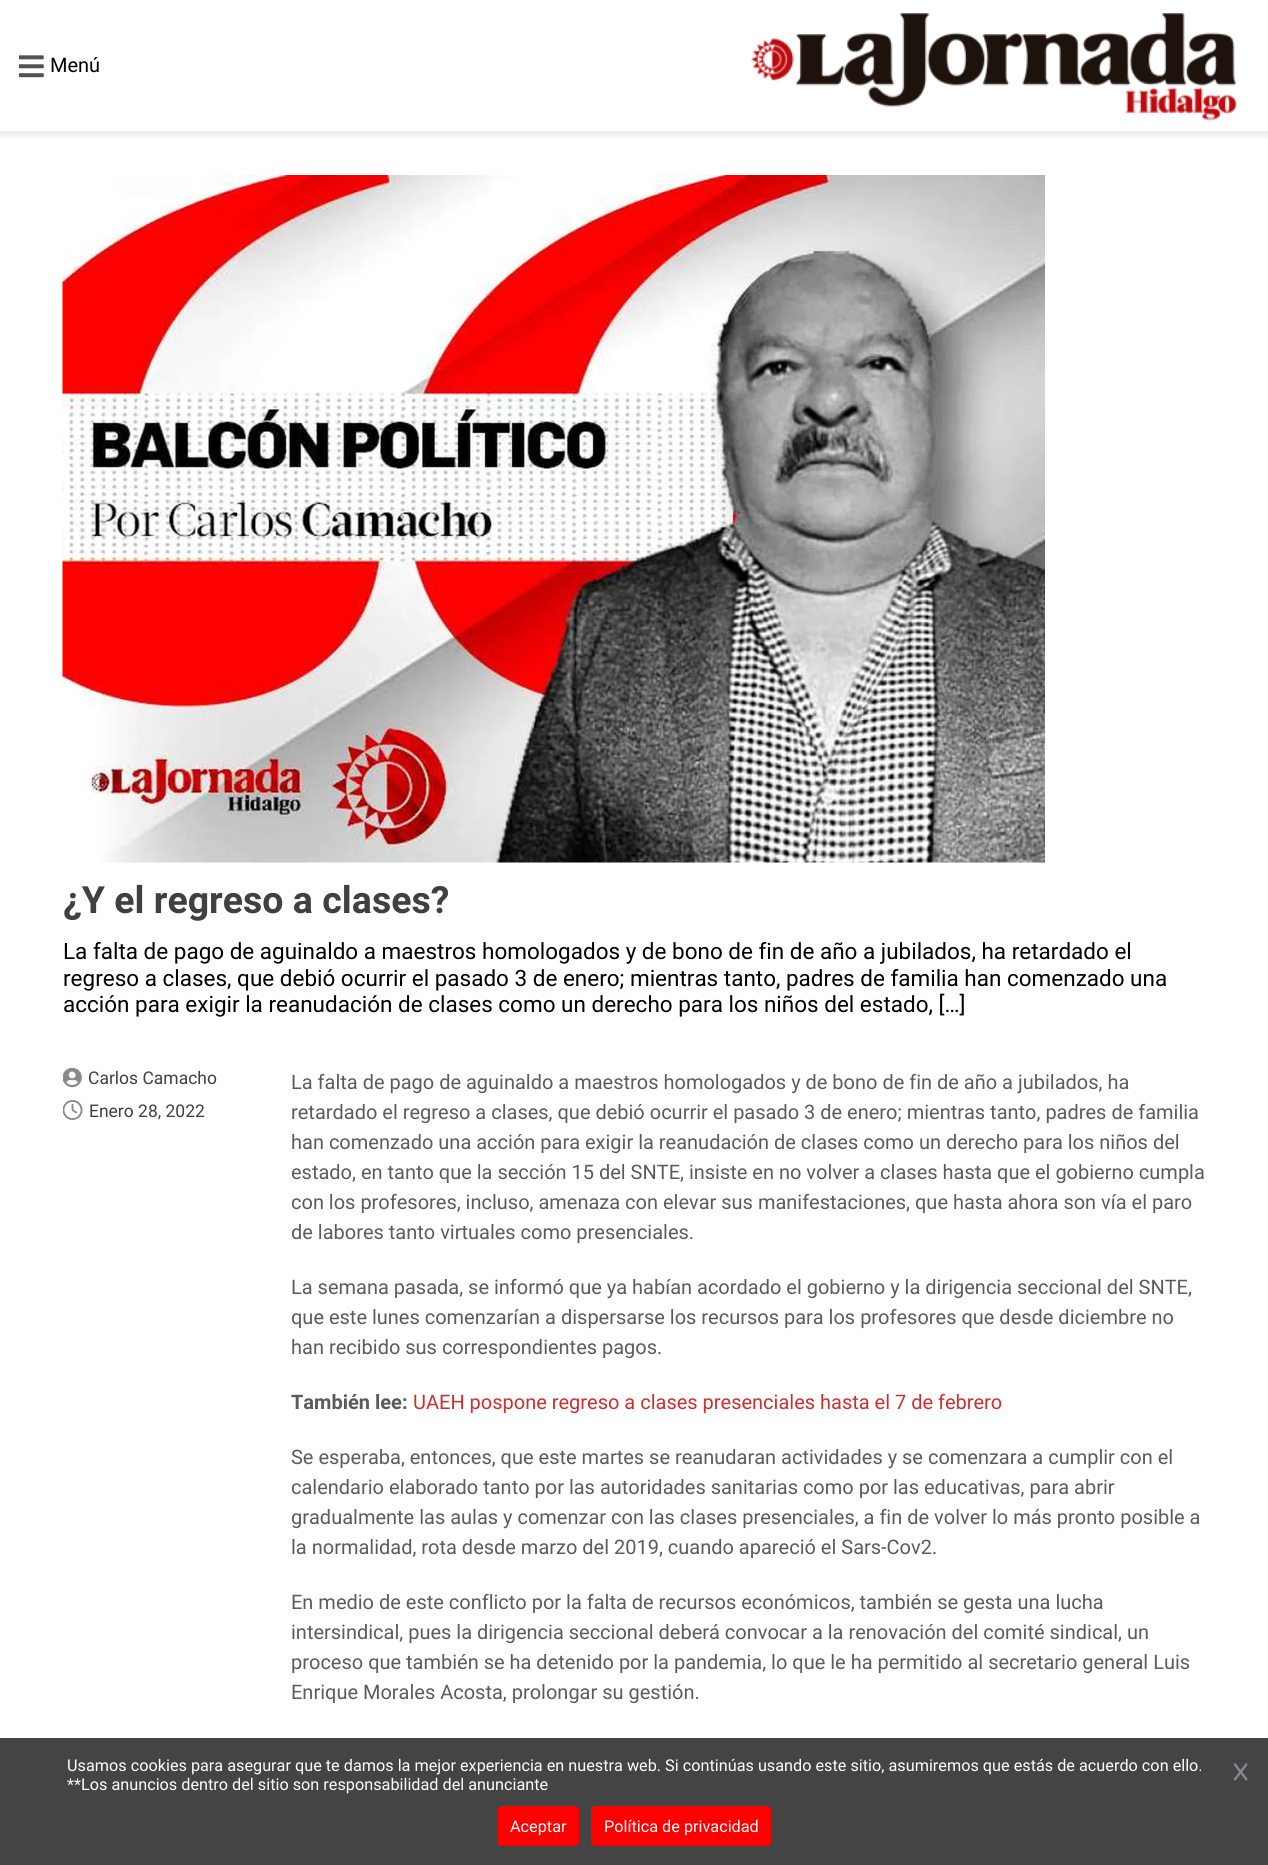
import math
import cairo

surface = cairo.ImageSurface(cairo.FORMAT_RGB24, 1268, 1865)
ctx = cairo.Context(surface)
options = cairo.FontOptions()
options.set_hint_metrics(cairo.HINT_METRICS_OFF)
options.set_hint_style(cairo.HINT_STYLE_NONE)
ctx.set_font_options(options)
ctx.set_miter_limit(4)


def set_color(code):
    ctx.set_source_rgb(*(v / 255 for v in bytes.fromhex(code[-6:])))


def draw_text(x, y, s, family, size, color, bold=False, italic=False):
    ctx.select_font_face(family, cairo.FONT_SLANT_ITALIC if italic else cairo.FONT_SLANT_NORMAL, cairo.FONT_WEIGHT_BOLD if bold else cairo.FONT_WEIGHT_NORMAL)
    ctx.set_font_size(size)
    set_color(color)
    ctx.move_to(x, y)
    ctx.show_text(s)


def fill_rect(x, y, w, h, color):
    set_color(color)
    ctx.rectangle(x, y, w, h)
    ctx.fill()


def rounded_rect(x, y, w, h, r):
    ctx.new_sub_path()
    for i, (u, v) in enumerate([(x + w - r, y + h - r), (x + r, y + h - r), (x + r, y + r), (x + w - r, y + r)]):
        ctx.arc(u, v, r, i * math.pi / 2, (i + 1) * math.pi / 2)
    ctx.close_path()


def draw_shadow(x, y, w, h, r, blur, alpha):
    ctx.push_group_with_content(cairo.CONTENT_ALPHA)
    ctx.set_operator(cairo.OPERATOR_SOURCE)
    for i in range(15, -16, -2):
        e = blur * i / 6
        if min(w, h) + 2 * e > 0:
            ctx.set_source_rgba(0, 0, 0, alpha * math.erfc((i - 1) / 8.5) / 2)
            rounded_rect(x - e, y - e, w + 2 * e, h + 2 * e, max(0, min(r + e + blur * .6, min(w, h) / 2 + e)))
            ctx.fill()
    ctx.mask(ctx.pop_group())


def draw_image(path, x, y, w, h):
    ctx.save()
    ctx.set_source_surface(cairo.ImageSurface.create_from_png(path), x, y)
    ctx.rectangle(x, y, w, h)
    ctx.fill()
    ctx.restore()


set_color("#ffffff")
ctx.paint()
ctx.save()
ctx.rectangle(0, 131, 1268, 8)
ctx.clip()
set_color("#000000")
draw_shadow(0, 4, 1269, 131, 0, 4.5, 0.1)
ctx.restore()
draw_image("assets/img1.png", 19, 55, 25, 23)
draw_text(50, 72, "Menú", "Roboto", 20, "#000000")
draw_image("assets/img2.png", 751, 13, 486, 108)
draw_image("assets/img3.png", 62, 175, 983, 688)
draw_text(63, 913, "¿Y el regreso a clases?", "Roboto", 37.5, "#404040", bold=True)
draw_text(63, 959, "La falta de pago de aguinaldo a maestros homologados y de bono de fin de año a jubilados, ha retardado el", "Roboto", 22.5, "#000000")
draw_text(63, 986, "regreso a clases, que debió ocurrir el pasado 3 de enero; mientras tanto, padres de familia han comenzado una", "Roboto", 22.5, "#000000")
draw_text(63, 1012, "acción para exigir la reanudación de clases como un derecho para los niños del estado, […]", "Roboto", 22.5, "#000000")
draw_image("assets/img4.png", 63, 1068, 19, 20)
draw_text(88, 1084, "Carlos Camacho", "Roboto", 17.5, "#404040")
draw_image("assets/img5.png", 63, 1100, 20, 20)
draw_text(89, 1117, "Enero 28, 2022", "Roboto", 17.5, "#404040")
draw_text(291, 1089, "La falta de pago de aguinaldo a maestros homologados y de bono de fin de año a jubilados, ha", "Roboto", 20, "#5b5b5b")
draw_text(291, 1119, "retardado el regreso a clases, que debió ocurrir el pasado 3 de enero; mientras tanto, padres de familia", "Roboto", 20, "#5b5b5b")
draw_text(291, 1149, "han comenzado una acción para exigir la reanudación de clases como un derecho para los niños del", "Roboto", 20, "#5b5b5b")
draw_text(291, 1179, "estado, en tanto que la sección 15 del SNTE, insiste en no volver a clases hasta que el gobierno cumpla", "Roboto", 20, "#5b5b5b")
draw_text(291, 1209, "con los profesores, incluso, amenaza con elevar sus manifestaciones, que hasta ahora son vía el paro", "Roboto", 20, "#5b5b5b")
draw_text(291, 1239, "de labores tanto virtuales como presenciales.", "Roboto", 20, "#5b5b5b")
draw_text(291, 1294, "La semana pasada, se informó que ya habían acordado el gobierno y la dirigencia seccional del SNTE,", "Roboto", 20, "#5b5b5b")
draw_text(291, 1324, "que este lunes comenzarían a dispersarse los recursos para los profesores que desde diciembre no", "Roboto", 20, "#5b5b5b")
draw_text(291, 1354, "han recibido sus correspondientes pagos.", "Roboto", 20, "#5b5b5b")
draw_text(291, 1409, "También lee:", "Roboto", 20, "#5b5b5b", bold=True)
draw_text(413, 1409, "UAEH pospone regreso a clases presenciales hasta el 7 de febrero", "Roboto", 20, "#cf2e2e")
draw_text(291, 1464, "Se esperaba, entonces, que este martes se reanudaran actividades y se comenzara a cumplir con el", "Roboto", 20, "#5b5b5b")
draw_text(291, 1494, "calendario elaborado tanto por las autoridades sanitarias como por las educativas, para abrir", "Roboto", 20, "#5b5b5b")
draw_text(291, 1524, "gradualmente las aulas y comenzar con las clases presenciales, a fin de volver lo más pronto posible a", "Roboto", 20, "#5b5b5b")
draw_text(291, 1554, "la normalidad, rota desde marzo del 2019, cuando apareció el Sars-Cov2.", "Roboto", 20, "#5b5b5b")
draw_text(291, 1609, "En medio de este conflicto por la falta de recursos económicos, también se gesta una lucha", "Roboto", 20, "#5b5b5b")
draw_text(291, 1639, "intersindical, pues la dirigencia seccional deberá convocar a la renovación del comité sindical, un", "Roboto", 20, "#5b5b5b")
draw_text(291, 1669, "proceso que también se ha detenido por la pandemia, lo que le ha permitido al secretario general Luis", "Roboto", 20, "#5b5b5b")
draw_text(291, 1699, "Enrique Morales Acosta, prolongar su gestión.", "Roboto", 20, "#5b5b5b")
fill_rect(0, 1738, 1268, 127, "#444444")
draw_text(67, 1771, "Usamos cookies para asegurar que te damos la mejor experiencia en nuestra web. Si continúas usando este sitio, asumiremos que estás de acuerdo con ello.", "Roboto", 16.25, "#ffffff")
draw_text(67, 1790, "**Los anuncios dentro del sitio son responsabilidad del anunciante", "Roboto", 16.25, "#ffffff")
draw_image("assets/img6.png", 1233, 1763, 15, 18)
set_color("#ff0000")
rounded_rect(498, 1806, 81, 40, 4)
ctx.fill()
draw_text(510, 1832, "Aceptar", "Roboto", 16.25, "#ffffff")
set_color("#ff0000")
rounded_rect(591, 1806, 180, 40, 4)
ctx.fill()
draw_text(604, 1832, "Política de privacidad", "Roboto", 16.25, "#ffffff")
surface.write_to_png("output.png")
